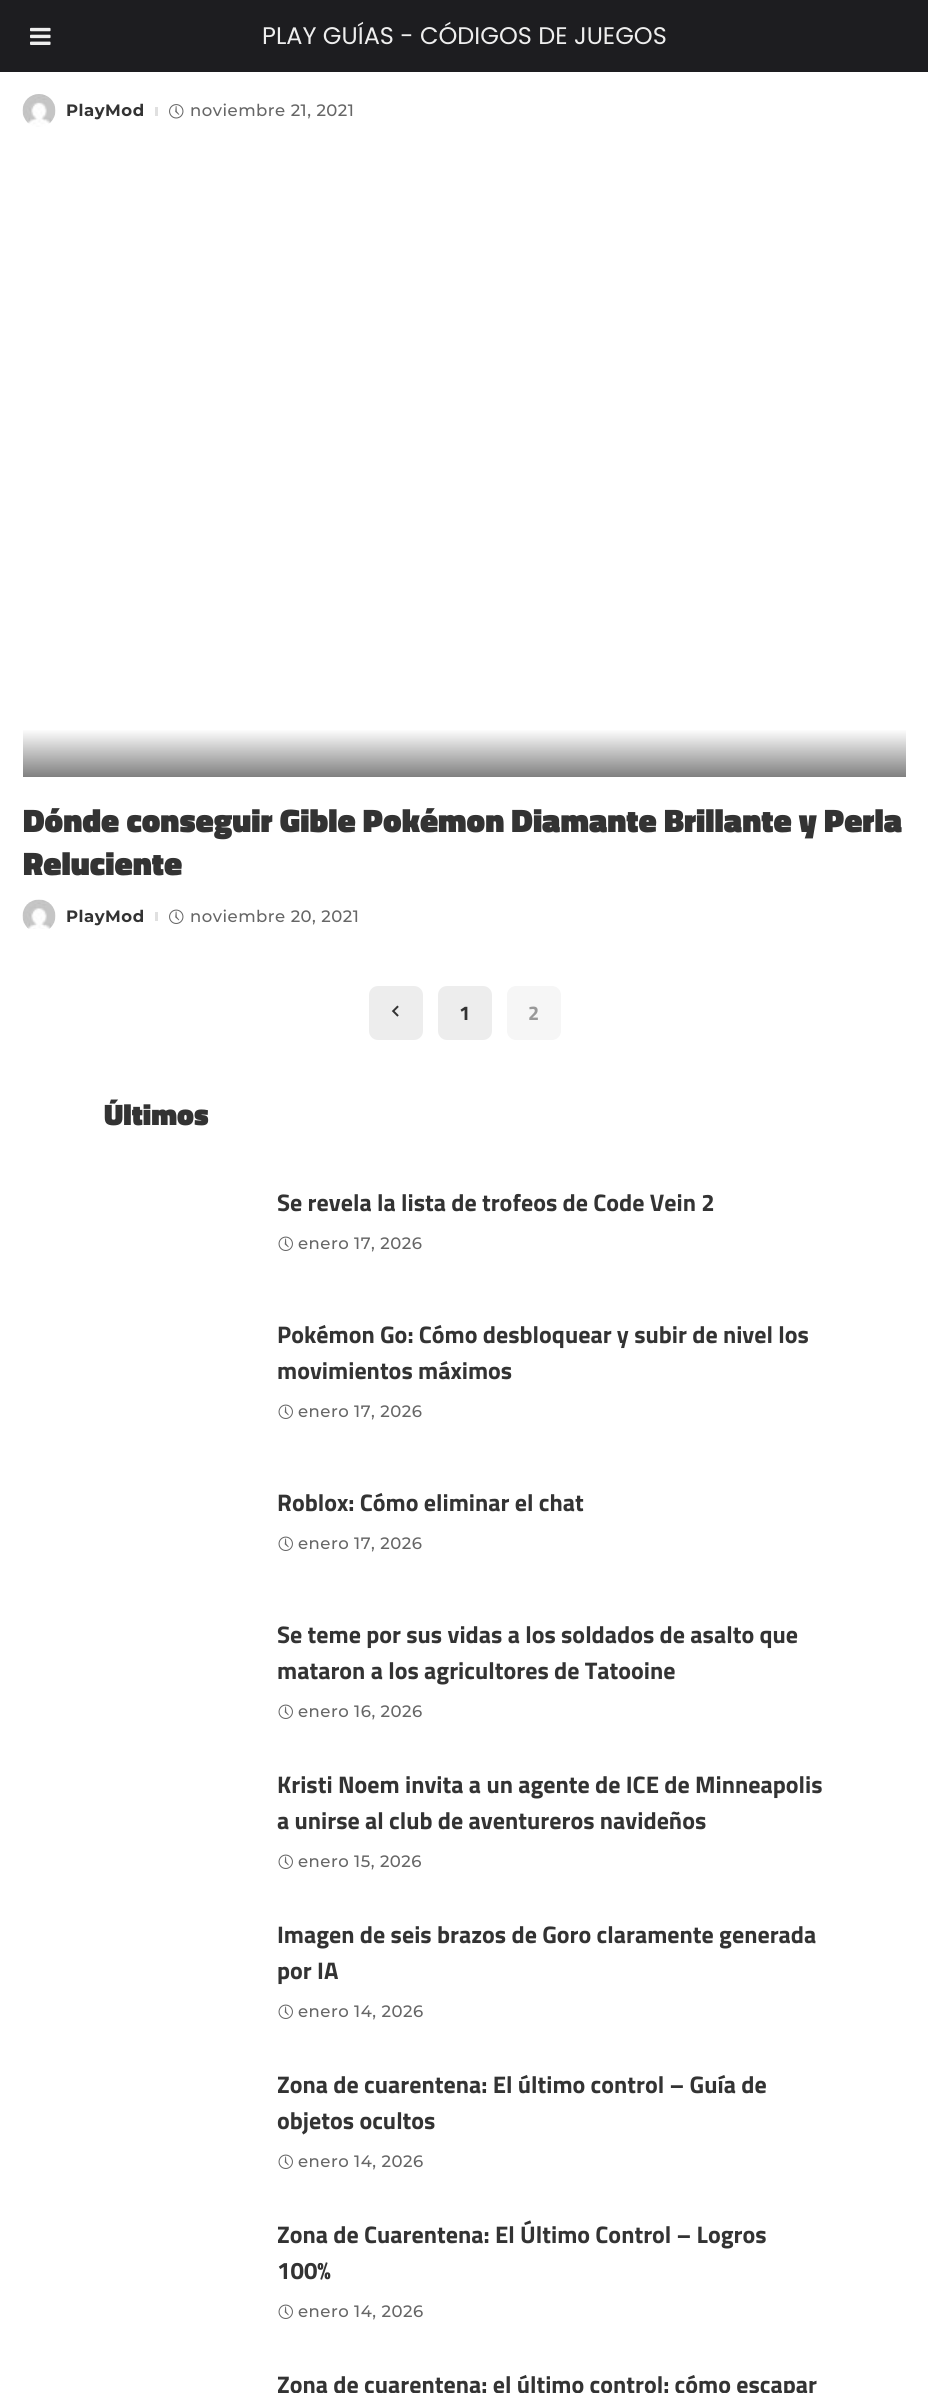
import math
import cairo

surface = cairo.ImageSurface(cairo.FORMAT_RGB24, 928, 2393)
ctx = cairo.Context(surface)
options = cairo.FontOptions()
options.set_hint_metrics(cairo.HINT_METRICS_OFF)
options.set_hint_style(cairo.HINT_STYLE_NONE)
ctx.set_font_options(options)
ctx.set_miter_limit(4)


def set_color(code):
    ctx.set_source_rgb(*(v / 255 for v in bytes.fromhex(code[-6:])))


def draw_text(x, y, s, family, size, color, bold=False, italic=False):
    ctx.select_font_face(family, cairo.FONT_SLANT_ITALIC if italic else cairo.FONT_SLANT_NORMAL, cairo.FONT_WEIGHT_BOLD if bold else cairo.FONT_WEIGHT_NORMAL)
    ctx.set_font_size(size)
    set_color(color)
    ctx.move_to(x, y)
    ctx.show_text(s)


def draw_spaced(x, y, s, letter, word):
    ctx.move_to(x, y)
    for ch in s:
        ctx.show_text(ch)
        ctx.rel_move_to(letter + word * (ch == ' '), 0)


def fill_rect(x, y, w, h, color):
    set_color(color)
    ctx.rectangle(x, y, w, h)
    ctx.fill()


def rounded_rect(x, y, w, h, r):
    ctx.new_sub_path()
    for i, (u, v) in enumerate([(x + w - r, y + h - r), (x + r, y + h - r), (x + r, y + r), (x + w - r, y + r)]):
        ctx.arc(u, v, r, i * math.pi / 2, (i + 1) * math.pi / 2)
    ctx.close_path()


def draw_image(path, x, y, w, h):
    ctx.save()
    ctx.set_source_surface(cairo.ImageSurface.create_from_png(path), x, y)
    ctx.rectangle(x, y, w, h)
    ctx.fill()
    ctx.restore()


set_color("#ffffff")
ctx.paint()
fill_rect(0, 0, 928, 72, "#1d1d20")
draw_image("assets/img1.png", 30, 27, 21, 18)
draw_text(262, 44, "PLAY GUÍAS - CÓDIGOS DE JUEGOS", "Poppins", 24, "#eeeeee")
draw_image("assets/img2.png", 22, 94, 34, 33)
ctx.select_font_face("Montserrat", cairo.FONT_SLANT_NORMAL, cairo.FONT_WEIGHT_BOLD)
ctx.set_font_size(16.5)
set_color("#333333")
draw_spaced(66, 116, "PlayMod", 0.5, 0)
fill_rect(155, 107, 3, 9, "#e0e0e0")
draw_image("assets/img3.png", 169, 104, 15, 15)
ctx.select_font_face("Montserrat Medium")
set_color("#666666")
draw_spaced(190, 116, "noviembre 21, 2021", 0.5, 0)
gradient = cairo.LinearGradient(464, 729, 464, 777)
gradient.add_color_stop_rgba(0, 1, 1, 1, 1)
gradient.add_color_stop_rgba(1, 0.502, 0.502, 0.502, 1)
ctx.set_source(gradient)
ctx.rectangle(23, 730, 883, 47)
ctx.fill()
draw_text(23, 832, "Dónde conseguir Gible Pokémon Diamante Brillante y Perla", "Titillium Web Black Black", 33, "#333333")
draw_text(23, 875, "Reluciente", "Titillium Web Black Black", 33, "#333333")
draw_image("assets/img4.png", 22, 899, 34, 30)
ctx.select_font_face("Montserrat", cairo.FONT_SLANT_NORMAL, cairo.FONT_WEIGHT_BOLD)
ctx.set_font_size(16.5)
draw_spaced(66, 922, "PlayMod", 0.5, 0)
fill_rect(155, 912, 3, 9, "#e0e0e0")
draw_image("assets/img5.png", 169, 909, 15, 15)
ctx.select_font_face("Montserrat Medium")
set_color("#666666")
draw_spaced(190, 922, "noviembre 20, 2021", 0.5, 0)
set_color("#ededed")
rounded_rect(369, 986, 54, 54, 9)
ctx.fill()
draw_image("assets/img6.png", 391, 1005, 8, 12)
rounded_rect(438, 986, 54, 54, 9)
ctx.fill()
draw_text(459, 1020, "1", "Titillium Web", 20, "#333333", bold=True)
set_color("#f6f6f6")
rounded_rect(507, 986, 54, 54, 9)
ctx.fill()
draw_text(528, 1020, "2", "Titillium Web", 20, "#999999", bold=True)
draw_text(104, 1125, "Últimos", "Titillium Web Black Black", 30, "#333333")
draw_text(277, 1211, "Se revela la lista de trofeos de Code Vein 2", "Titillium Web", 24, "#333333", bold=True)
draw_image("assets/img7.png", 278, 1236, 15, 15)
ctx.select_font_face("Montserrat Medium")
ctx.set_font_size(16.5)
set_color("#666666")
draw_spaced(298, 1249, "enero 17, 2026", 0.5, 0)
draw_text(277, 1343, "Pokémon Go: Cómo desbloquear y subir de nivel los", "Titillium Web", 24, "#333333", bold=True)
draw_text(277, 1379, "movimientos máximos", "Titillium Web", 24, "#333333", bold=True)
draw_image("assets/img7.png", 278, 1404, 15, 15)
ctx.select_font_face("Montserrat Medium")
ctx.set_font_size(16.5)
set_color("#666666")
draw_spaced(298, 1417, "enero 17, 2026", 0.5, 0)
draw_text(277, 1511, "Roblox: Cómo eliminar el chat", "Titillium Web", 24, "#333333", bold=True)
draw_image("assets/img7.png", 278, 1536, 15, 15)
ctx.select_font_face("Montserrat Medium")
ctx.set_font_size(16.5)
set_color("#666666")
draw_spaced(298, 1549, "enero 17, 2026", 0.5, 0)
draw_text(277, 1643, "Se teme por sus vidas a los soldados de asalto que", "Titillium Web", 24, "#333333", bold=True)
draw_text(277, 1679, "mataron a los agricultores de Tatooine", "Titillium Web", 24, "#333333", bold=True)
draw_image("assets/img7.png", 278, 1704, 15, 15)
ctx.select_font_face("Montserrat Medium")
ctx.set_font_size(16.5)
set_color("#666666")
draw_spaced(298, 1717, "enero 16, 2026", 0.5, 0)
draw_text(277, 1793, "Kristi Noem invita a un agente de ICE de Minneapolis", "Titillium Web", 24, "#333333", bold=True)
draw_text(277, 1829, "a unirse al club de aventureros navideños", "Titillium Web", 24, "#333333", bold=True)
draw_image("assets/img7.png", 278, 1854, 15, 15)
ctx.select_font_face("Montserrat Medium")
ctx.set_font_size(16.5)
set_color("#666666")
draw_spaced(298, 1867, "enero 15, 2026", 0.5, 0)
draw_text(277, 1943, "Imagen de seis brazos de Goro claramente generada", "Titillium Web", 24, "#333333", bold=True)
draw_text(277, 1979, "por IA", "Titillium Web", 24, "#333333", bold=True)
draw_image("assets/img7.png", 278, 2004, 15, 15)
ctx.select_font_face("Montserrat Medium")
ctx.set_font_size(16.5)
set_color("#666666")
draw_spaced(298, 2017, "enero 14, 2026", 0.5, 0)
draw_text(277, 2093, "Zona de cuarentena: El último control – Guía de", "Titillium Web", 24, "#333333", bold=True)
draw_text(277, 2129, "objetos ocultos", "Titillium Web", 24, "#333333", bold=True)
draw_image("assets/img7.png", 278, 2154, 15, 15)
ctx.select_font_face("Montserrat Medium")
ctx.set_font_size(16.5)
set_color("#666666")
draw_spaced(298, 2167, "enero 14, 2026", 0.5, 0)
draw_text(277, 2243, "Zona de Cuarentena: El Último Control – Logros", "Titillium Web", 24, "#333333", bold=True)
draw_text(277, 2279, "100%", "Titillium Web", 24, "#333333", bold=True)
draw_image("assets/img7.png", 278, 2304, 15, 15)
ctx.select_font_face("Montserrat Medium")
ctx.set_font_size(16.5)
set_color("#666666")
draw_spaced(298, 2317, "enero 14, 2026", 0.5, 0)
draw_text(277, 2393, "Zona de cuarentena: el último control: cómo escapar", "Titillium Web", 24, "#333333", bold=True)
surface.write_to_png("output.png")
